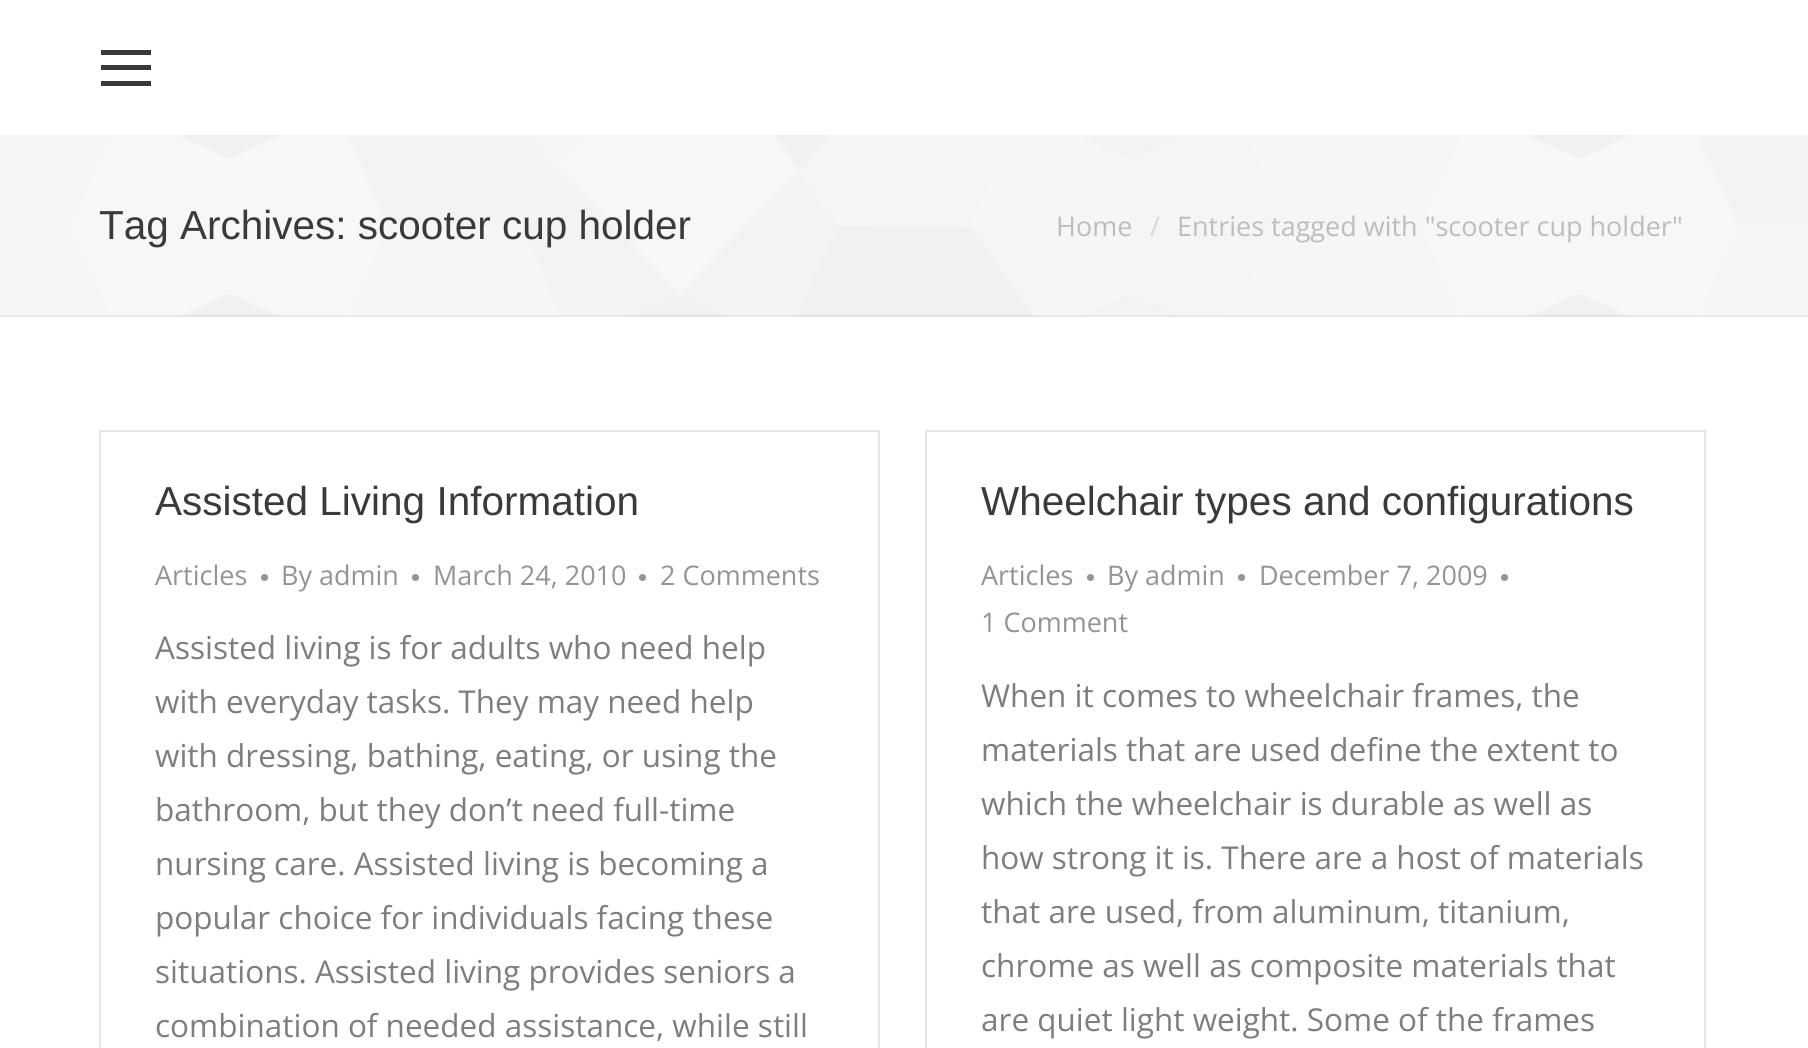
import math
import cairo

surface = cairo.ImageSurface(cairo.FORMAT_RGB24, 1808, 1048)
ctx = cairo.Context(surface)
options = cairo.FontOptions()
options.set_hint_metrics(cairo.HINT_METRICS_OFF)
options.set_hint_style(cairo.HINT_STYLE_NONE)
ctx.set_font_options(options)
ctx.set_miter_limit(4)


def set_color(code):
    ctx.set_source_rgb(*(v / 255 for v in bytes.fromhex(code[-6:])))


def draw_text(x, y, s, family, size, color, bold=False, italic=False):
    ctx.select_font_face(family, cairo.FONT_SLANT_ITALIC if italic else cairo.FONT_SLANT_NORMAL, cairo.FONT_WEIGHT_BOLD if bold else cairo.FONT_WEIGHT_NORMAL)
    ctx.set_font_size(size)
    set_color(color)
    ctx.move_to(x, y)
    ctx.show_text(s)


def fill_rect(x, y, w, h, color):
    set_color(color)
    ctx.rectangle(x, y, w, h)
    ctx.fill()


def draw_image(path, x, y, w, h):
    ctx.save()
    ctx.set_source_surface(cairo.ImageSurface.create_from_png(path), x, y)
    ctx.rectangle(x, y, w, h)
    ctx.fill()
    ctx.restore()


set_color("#ffffff")
ctx.paint()
fill_rect(101, 65, 50, 5, "#3a3a3a")
fill_rect(101, 50, 50, 5, "#3a3a3a")
fill_rect(101, 81, 50, 5, "#3a3a3a")
draw_image("assets/img1.png", 0, 135, 1808, 182)
ctx.set_source_rgba(0.227, 0.227, 0.227, 0.07)
ctx.rectangle(0, 315, 1808, 2)
ctx.fill()
draw_text(99, 239, "Tag Archives: scooter cup holder", "Liberation Sans", 40.5, "#3a3a3a")
draw_text(1056, 236, "Home", "Open Sans", 27, "#bdbdbd")
draw_text(1150, 236, "/", "Open Sans", 27, "#d8d8d8")
draw_text(1177, 236, "Entries tagged with \"scooter cup holder\"", "Open Sans", 27, "#bdbdbd")
ctx.rectangle(100, 431, 779, 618)
set_color("#e5e5e5")
ctx.stroke()
draw_text(155, 515, "Assisted Living Information", "Liberation Sans", 40.5, "#3a3a3a")
draw_text(155, 585, "Articles", "Open Sans", 27, "#949497")
ctx.new_path()
ctx.arc(264.5, 577.5, 3.5, 0, 2 * math.pi)
ctx.fill()
draw_text(281, 585, "By admin", "Open Sans", 27, "#949497")
ctx.new_path()
ctx.arc(415.5, 577.5, 3.5, 0, 2 * math.pi)
ctx.fill()
draw_text(433, 585, "March 24, 2010", "Open Sans", 27, "#949497")
ctx.new_path()
ctx.arc(642.5, 577.5, 3.5, 0, 2 * math.pi)
ctx.fill()
draw_text(660, 585, "2 Comments", "Open Sans", 27, "#949497")
draw_text(155, 659, "Assisted living is for adults who need help", "Open Sans", 31.5, "#7e7e7e")
draw_text(155, 713, "with everyday tasks. They may need help", "Open Sans", 31.5, "#7e7e7e")
draw_text(155, 767, "with dressing, bathing, eating, or using the", "Open Sans", 31.5, "#7e7e7e")
draw_text(155, 821, "bathroom, but they don’t need full-time", "Open Sans", 31.5, "#7e7e7e")
draw_text(155, 875, "nursing care. Assisted living is becoming a", "Open Sans", 31.5, "#7e7e7e")
draw_text(155, 929, "popular choice for individuals facing these", "Open Sans", 31.5, "#7e7e7e")
draw_text(155, 983, "situations. Assisted living provides seniors a", "Open Sans", 31.5, "#7e7e7e")
draw_text(155, 1037, "combination of needed assistance, while still", "Open Sans", 31.5, "#7e7e7e")
ctx.rectangle(926, 431, 779, 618)
set_color("#e5e5e5")
ctx.stroke()
draw_text(981, 515, "Wheelchair types and configurations", "Liberation Sans", 40.5, "#3a3a3a")
draw_text(981, 585, "Articles", "Open Sans", 27, "#949497")
ctx.new_path()
ctx.arc(1090.5, 577.5, 3.5, 0, 2 * math.pi)
ctx.fill()
draw_text(1107, 585, "By admin", "Open Sans", 27, "#949497")
ctx.new_path()
ctx.arc(1241.5, 577.5, 3.5, 0, 2 * math.pi)
ctx.fill()
draw_text(1259, 585, "December 7, 2009", "Open Sans", 27, "#949497")
ctx.new_path()
ctx.arc(1504.5, 577.5, 3.5, 0, 2 * math.pi)
ctx.fill()
draw_text(981, 632, "1 Comment", "Open Sans", 27, "#949497")
draw_text(981, 707, "When it comes to wheelchair frames, the", "Open Sans", 31.5, "#7e7e7e")
draw_text(981, 761, "materials that are used define the extent to", "Open Sans", 31.5, "#7e7e7e")
draw_text(981, 815, "which the wheelchair is durable as well as", "Open Sans", 31.5, "#7e7e7e")
draw_text(981, 869, "how strong it is. There are a host of materials", "Open Sans", 31.5, "#7e7e7e")
draw_text(981, 923, "that are used, from aluminum, titanium,", "Open Sans", 31.5, "#7e7e7e")
draw_text(981, 977, "chrome as well as composite materials that", "Open Sans", 31.5, "#7e7e7e")
draw_text(981, 1031, "are quiet light weight. Some of the frames", "Open Sans", 31.5, "#7e7e7e")
surface.write_to_png("output.png")
